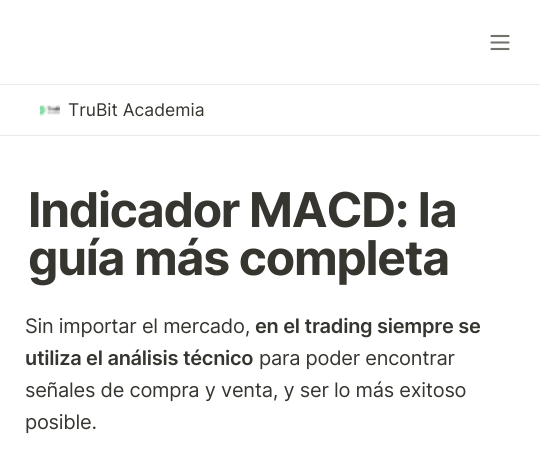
import math
import cairo

surface = cairo.ImageSurface(cairo.FORMAT_RGB24, 540, 471)
ctx = cairo.Context(surface)
options = cairo.FontOptions()
options.set_hint_metrics(cairo.HINT_METRICS_OFF)
options.set_hint_style(cairo.HINT_STYLE_NONE)
ctx.set_font_options(options)
ctx.set_miter_limit(4)


def set_color(code):
    ctx.set_source_rgb(*(v / 255 for v in bytes.fromhex(code[-6:])))


def draw_text(x, y, s, family, size, color, bold=False, italic=False):
    ctx.select_font_face(family, cairo.FONT_SLANT_ITALIC if italic else cairo.FONT_SLANT_NORMAL, cairo.FONT_WEIGHT_BOLD if bold else cairo.FONT_WEIGHT_NORMAL)
    ctx.set_font_size(size)
    set_color(color)
    ctx.move_to(x, y)
    ctx.show_text(s)


def draw_spaced(x, y, s, letter, word):
    ctx.move_to(x, y)
    for ch in s:
        ctx.show_text(ch)
        ctx.rel_move_to(letter + word * (ch == ' '), 0)


def fill_rect(x, y, w, h, color):
    set_color(color)
    ctx.rectangle(x, y, w, h)
    ctx.fill()


def draw_image(path, x, y, w, h):
    ctx.save()
    ctx.set_source_surface(cairo.ImageSurface.create_from_png(path), x, y)
    ctx.rectangle(x, y, w, h)
    ctx.fill()
    ctx.restore()


set_color("#ffffff")
ctx.paint()
fill_rect(0, 84, 540, 1, "#e9e9e7")
ctx.new_path()
ctx.move_to(491.5, 42.5)
ctx.line_to(508.5, 42.5)
ctx.move_to(491.5, 36)
ctx.line_to(508.5, 36)
ctx.move_to(491.5, 49)
ctx.line_to(508.5, 49)
set_color("#73726d")
ctx.set_line_width(2.1)
ctx.set_line_cap(cairo.LINE_CAP_ROUND)
ctx.set_line_join(cairo.LINE_JOIN_ROUND)
ctx.stroke()
fill_rect(0, 135, 540, 1, "#e9e9e7")
draw_image("assets/img1.png", 40, 105, 20, 12)
draw_text(68, 116, "TruBit Academia", "Inter", 17.5, "#37352f")
ctx.select_font_face("Inter", cairo.FONT_SLANT_NORMAL, cairo.FONT_WEIGHT_BOLD)
ctx.set_font_size(48)
draw_spaced(28, 227, "Indicador MACD: la", -1.25, 0)
draw_spaced(28, 275, "guía más completa", -1.25, 0)
ctx.select_font_face("Inter")
ctx.set_font_size(20)
draw_spaced(25, 333, "Sin importar el mercado,", -0.25, 0)
ctx.select_font_face("Inter SemiBold")
draw_spaced(255, 333, "en el trading siempre se", -0.25, 0)
draw_spaced(25, 365, "utiliza el análisis técnico", -0.25, 0)
ctx.select_font_face("Inter")
draw_spaced(259, 365, "para poder encontrar", -0.25, 0)
draw_spaced(25, 397, "señales de compra y venta, y ser lo más exitoso", -0.25, 0)
draw_spaced(25, 429, "posible.", -0.25, 0)
surface.write_to_png("output.png")
